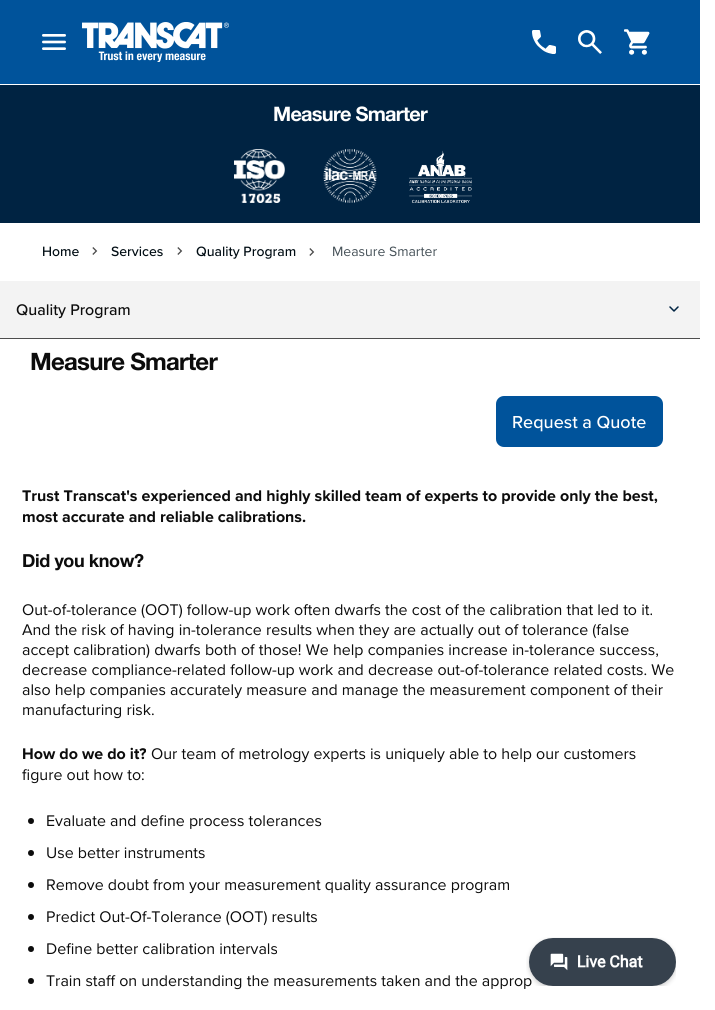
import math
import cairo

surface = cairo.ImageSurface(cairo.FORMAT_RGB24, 715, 1010)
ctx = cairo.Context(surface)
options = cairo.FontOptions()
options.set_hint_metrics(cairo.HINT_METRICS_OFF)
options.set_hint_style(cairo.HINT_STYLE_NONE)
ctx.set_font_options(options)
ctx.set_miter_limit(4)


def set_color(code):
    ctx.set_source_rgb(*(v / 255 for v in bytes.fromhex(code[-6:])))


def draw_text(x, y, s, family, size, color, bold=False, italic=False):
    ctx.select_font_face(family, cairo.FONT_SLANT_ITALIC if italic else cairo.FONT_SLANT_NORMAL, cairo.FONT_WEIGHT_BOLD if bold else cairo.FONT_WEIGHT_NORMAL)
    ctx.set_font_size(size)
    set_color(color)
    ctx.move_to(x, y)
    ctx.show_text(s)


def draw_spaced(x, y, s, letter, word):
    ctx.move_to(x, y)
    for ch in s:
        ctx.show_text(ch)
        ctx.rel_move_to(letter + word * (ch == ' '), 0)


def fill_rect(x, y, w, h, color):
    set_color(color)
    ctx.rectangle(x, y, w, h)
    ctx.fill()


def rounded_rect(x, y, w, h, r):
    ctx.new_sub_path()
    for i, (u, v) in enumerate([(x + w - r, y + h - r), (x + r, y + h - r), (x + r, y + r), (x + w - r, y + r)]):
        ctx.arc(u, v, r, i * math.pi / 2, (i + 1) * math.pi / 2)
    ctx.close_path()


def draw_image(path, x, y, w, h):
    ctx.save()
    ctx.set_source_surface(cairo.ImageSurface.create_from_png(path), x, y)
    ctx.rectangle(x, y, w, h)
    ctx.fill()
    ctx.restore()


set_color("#ffffff")
ctx.paint()
fill_rect(0, 0, 700, 84, "#00539b")
draw_image("assets/img1.png", 42, 34, 24, 16)
draw_image("assets/img2.png", 82, 22, 147, 40)
draw_image("assets/img3.png", 532, 30, 24, 24)
draw_image("assets/img4.png", 578, 30, 24, 24)
draw_image("assets/img5.png", 624, 29, 26, 26)
fill_rect(0, 85, 700, 138, "#002342")
ctx.select_font_face("Helvetica Neue", cairo.FONT_SLANT_NORMAL, cairo.FONT_WEIGHT_BOLD)
ctx.set_font_size(20)
set_color("#ffffff")
draw_spaced(273, 121, "Measure Smarter", -0.75, 0)
draw_image("assets/img6.png", 234, 149, 51, 54)
draw_image("assets/img7.png", 323, 149, 54, 54)
draw_image("assets/img8.png", 409, 150, 63, 53)
draw_text(42, 256, "Home", "Proxima Nova Medium", 14, "#000c13")
draw_image("assets/img9.png", 92, 247, 6, 8)
draw_text(111, 256, "Services", "Proxima Nova Medium", 14, "#000c13")
draw_image("assets/img9.png", 177, 247, 6, 8)
draw_text(196, 256, "Quality Program", "Proxima Nova Medium", 14, "#000c13")
draw_image("assets/img9.png", 309, 248, 6, 8)
draw_text(332, 256, "Measure Smarter", "Proxima Nova", 14, "#465158")
fill_rect(0, 281, 700, 57, "#f3f3f3")
fill_rect(0, 338, 700, 1, "#4d4d4d")
draw_text(16, 315, "Quality Program", "Proxima Nova Medium", 16, "#0c0c0c")
ctx.new_path()
ctx.move_to(670, 307)
ctx.line_to(674, 311)
ctx.line_to(678, 307)
set_color("#002342")
ctx.set_line_width(1.5)
ctx.set_line_cap(cairo.LINE_CAP_ROUND)
ctx.set_line_join(cairo.LINE_JOIN_ROUND)
ctx.stroke()
ctx.select_font_face("Helvetica Neue", cairo.FONT_SLANT_NORMAL, cairo.FONT_WEIGHT_BOLD)
ctx.set_font_size(24)
set_color("#0c0c0c")
draw_spaced(30, 370, "Measure Smarter", -0.75, 0)
set_color("#00539b")
rounded_rect(496, 396, 167, 51, 8)
ctx.fill()
draw_text(512, 428, "Request a Quote", "Proxima Nova Medium", 18, "#ffffff")
draw_text(22, 501, "Trust Transcat's experienced and highly skilled team of experts to provide only the best,", "Proxima Nova", 16, "#0c0c0c", bold=True)
draw_text(22, 522, "most accurate and reliable calibrations.", "Proxima Nova", 16, "#0c0c0c", bold=True)
ctx.select_font_face("Helvetica Neue", cairo.FONT_SLANT_NORMAL, cairo.FONT_WEIGHT_BOLD)
ctx.set_font_size(18)
draw_spaced(22, 567, "Did you know?", -0.4, 0)
draw_text(22, 615, "Out-of-tolerance (OOT) follow-up work often dwarfs the cost of the calibration that led to it.", "Proxima Nova", 16, "#0c0c0c")
draw_text(22, 635, "And the risk of having in-tolerance results when they are actually out of tolerance (false", "Proxima Nova", 16, "#0c0c0c")
draw_text(22, 655, "accept calibration) dwarfs both of those! We help companies increase in-tolerance success,", "Proxima Nova", 16, "#0c0c0c")
draw_text(22, 675, "decrease compliance-related follow-up work and decrease out-of-tolerance related costs. We", "Proxima Nova", 16, "#0c0c0c")
draw_text(22, 695, "also help companies accurately measure and manage the measurement component of their", "Proxima Nova", 16, "#0c0c0c")
draw_text(22, 715, "manufacturing risk.", "Proxima Nova", 16, "#0c0c0c")
draw_text(22, 759, "How do we do it?", "Proxima Nova", 16, "#0c0c0c", bold=True)
draw_text(151, 759, "Our team of metrology experts is uniquely able to help our customers", "Proxima Nova", 16, "#0c0c0c")
draw_text(22, 780, "figure out how to:", "Proxima Nova", 16, "#0c0c0c")
ctx.new_path()
ctx.arc(31, 821, 3, 0, 2 * math.pi)
ctx.fill()
draw_text(46, 826, "Evaluate and define process tolerances", "Proxima Nova", 16, "#0c0c0c")
ctx.new_path()
ctx.arc(31, 853, 3, 0, 2 * math.pi)
ctx.fill()
draw_text(46, 858, "Use better instruments", "Proxima Nova", 16, "#0c0c0c")
ctx.new_path()
ctx.arc(31, 885, 3, 0, 2 * math.pi)
ctx.fill()
draw_text(46, 890, "Remove doubt from your measurement quality assurance program", "Proxima Nova", 16, "#0c0c0c")
ctx.new_path()
ctx.arc(31, 917, 3, 0, 2 * math.pi)
ctx.fill()
draw_text(46, 922, "Predict Out-Of-Tolerance (OOT) results", "Proxima Nova", 16, "#0c0c0c")
ctx.new_path()
ctx.arc(31, 949, 3, 0, 2 * math.pi)
ctx.fill()
draw_text(46, 954, "Define better calibration intervals", "Proxima Nova", 16, "#0c0c0c")
ctx.new_path()
ctx.arc(31, 981, 3, 0, 2 * math.pi)
ctx.fill()
draw_text(46, 986, "Train staff on understanding the measurements taken and the approp", "Proxima Nova", 16, "#0c0c0c")
draw_image("assets/img10.png", 526, 937, 150, 49)
surface.write_to_png("output.png")
